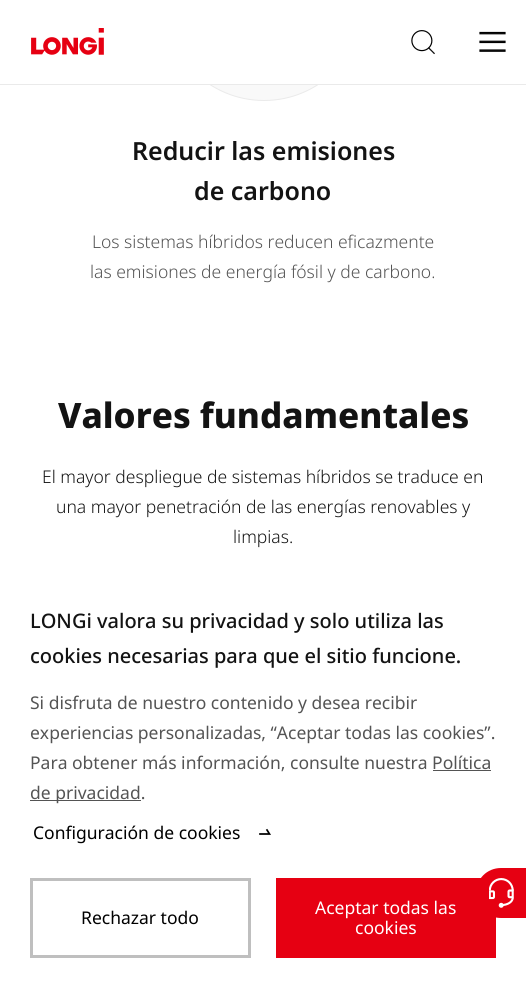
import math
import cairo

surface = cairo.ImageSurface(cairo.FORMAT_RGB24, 526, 1002)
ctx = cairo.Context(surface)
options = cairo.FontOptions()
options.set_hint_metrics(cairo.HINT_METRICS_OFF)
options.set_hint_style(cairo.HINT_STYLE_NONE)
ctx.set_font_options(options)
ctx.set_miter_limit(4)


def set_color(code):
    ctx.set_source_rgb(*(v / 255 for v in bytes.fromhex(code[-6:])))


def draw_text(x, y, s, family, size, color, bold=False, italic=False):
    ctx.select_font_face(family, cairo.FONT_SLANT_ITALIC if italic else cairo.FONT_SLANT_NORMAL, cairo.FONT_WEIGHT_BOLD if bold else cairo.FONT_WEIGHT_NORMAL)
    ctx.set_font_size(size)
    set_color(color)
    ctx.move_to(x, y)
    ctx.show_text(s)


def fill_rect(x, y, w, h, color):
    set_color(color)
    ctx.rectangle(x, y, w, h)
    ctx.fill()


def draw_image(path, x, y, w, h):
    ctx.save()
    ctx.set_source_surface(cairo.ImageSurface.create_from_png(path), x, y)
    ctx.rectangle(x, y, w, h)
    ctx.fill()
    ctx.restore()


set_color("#ffffff")
ctx.paint()
set_color("#f9f9f9")
ctx.arc(264, 1, 99.5, 0, 2 * math.pi)
ctx.fill_preserve()
set_color("#eaeaea")
ctx.set_line_width(1)
ctx.stroke()
fill_rect(0, 84, 526, 1, "#eaeaea")
fill_rect(164, 0, 200, 84, "#ffffff")
draw_image("assets/img1.png", 31, 28, 73, 27)
draw_image("assets/img2.png", 411, 30, 24, 25)
draw_image("assets/img3.png", 479, 31, 27, 21)
draw_text(132, 160, "Reducir las emisiones", "Noto Sans SemiBold", 25, "#131313")
draw_text(194, 200, "de carbono", "Noto Sans SemiBold", 25, "#131313")
draw_text(92, 248, "Los sistemas híbridos reducen eficazmente", "Noto Sans Light", 17.5, "#545454")
draw_text(90, 278, "las emisiones de energía fósil y de carbono.", "Noto Sans Light", 17.5, "#545454")
draw_text(58, 428, "Valores fundamentales", "Noto Sans ExtraBold", 35, "#131313")
draw_text(42, 483, "El mayor despliegue de sistemas híbridos se traduce en", "Noto Sans Light", 17.5, "#131313")
draw_text(56, 513, "una mayor penetración de las energías renovables y", "Noto Sans Light", 17.5, "#131313")
draw_text(233, 543, "limpias.", "Noto Sans Light", 17.5, "#131313")
draw_text(30, 628, "LONGi valora su privacidad y solo utiliza las", "Noto Sans Medium", 20, "#131313")
draw_text(30, 663, "cookies necesarias para que el sitio funcione.", "Noto Sans Medium", 20, "#131313")
draw_text(30, 709, "Si disfruta de nuestro contenido y desea recibir", "Noto Sans", 17.5, "#545454")
draw_text(30, 739, "experiencias personalizadas, “Aceptar todas las cookies”.", "Noto Sans", 17.5, "#545454")
draw_text(30, 769, "Para obtener más información, consulte nuestra Política", "Noto Sans", 17.5, "#545454")
fill_rect(30, 800, 111, 1, "#545454")
draw_text(30, 799, "de privacidad.", "Noto Sans", 17.5, "#545454")
fill_rect(433, 770, 58, 1, "#545454")
draw_text(33, 839, "Configuración de cookies", "Noto Sans", 17.5, "#000000")
ctx.new_path()
ctx.move_to(260, 834)
ctx.line_to(269.5, 834)
ctx.line_to(267, 830)
ctx.set_line_width(1.7)
ctx.set_line_cap(cairo.LINE_CAP_SQUARE)
ctx.stroke()
ctx.rectangle(31.5, 879.5, 218, 77)
set_color("#bfbfbf")
ctx.set_line_width(3)
ctx.set_line_cap(cairo.LINE_CAP_BUTT)
ctx.stroke()
draw_text(81, 924, "Rechazar todo", "Noto Sans", 17.5, "#000000")
fill_rect(276, 878, 220, 80, "#e60012")
draw_text(315, 914, "Aceptar todas las", "Noto Sans", 17.5, "#ffffff")
draw_text(355, 934, "cookies", "Noto Sans", 17.5, "#ffffff")
set_color("#e60012")
ctx.new_path()
ctx.move_to(501, 868)
ctx.line_to(526, 868)
ctx.line_to(526, 918)
ctx.line_to(501, 918)
ctx.curve_to(487, 918, 476, 907, 476, 893)
ctx.curve_to(476, 879, 487, 868, 501, 868)
ctx.close_path()
ctx.fill()
draw_image("assets/img4.png", 489, 878, 25, 30)
surface.write_to_png("output.png")
